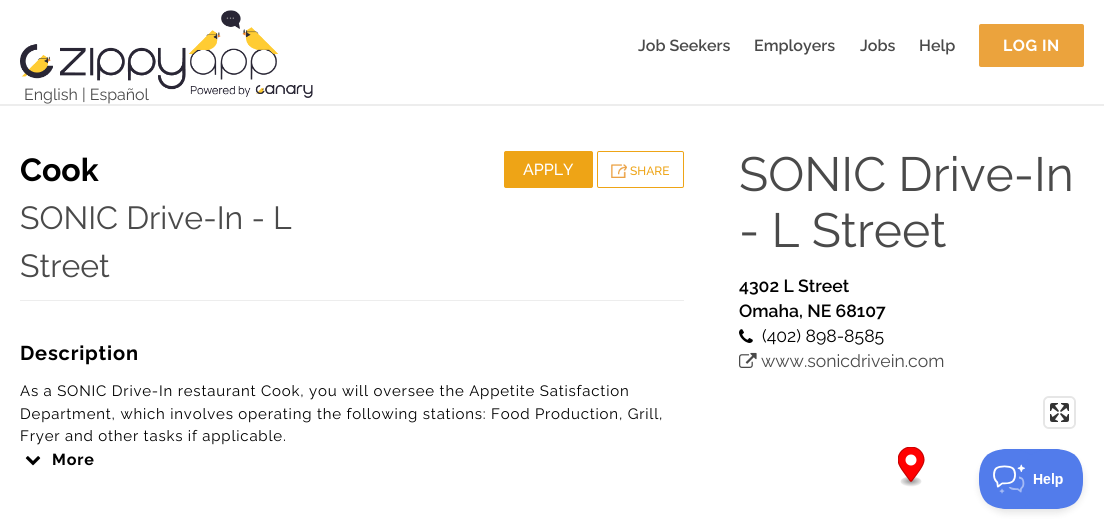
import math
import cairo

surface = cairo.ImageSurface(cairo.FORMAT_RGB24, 1104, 519)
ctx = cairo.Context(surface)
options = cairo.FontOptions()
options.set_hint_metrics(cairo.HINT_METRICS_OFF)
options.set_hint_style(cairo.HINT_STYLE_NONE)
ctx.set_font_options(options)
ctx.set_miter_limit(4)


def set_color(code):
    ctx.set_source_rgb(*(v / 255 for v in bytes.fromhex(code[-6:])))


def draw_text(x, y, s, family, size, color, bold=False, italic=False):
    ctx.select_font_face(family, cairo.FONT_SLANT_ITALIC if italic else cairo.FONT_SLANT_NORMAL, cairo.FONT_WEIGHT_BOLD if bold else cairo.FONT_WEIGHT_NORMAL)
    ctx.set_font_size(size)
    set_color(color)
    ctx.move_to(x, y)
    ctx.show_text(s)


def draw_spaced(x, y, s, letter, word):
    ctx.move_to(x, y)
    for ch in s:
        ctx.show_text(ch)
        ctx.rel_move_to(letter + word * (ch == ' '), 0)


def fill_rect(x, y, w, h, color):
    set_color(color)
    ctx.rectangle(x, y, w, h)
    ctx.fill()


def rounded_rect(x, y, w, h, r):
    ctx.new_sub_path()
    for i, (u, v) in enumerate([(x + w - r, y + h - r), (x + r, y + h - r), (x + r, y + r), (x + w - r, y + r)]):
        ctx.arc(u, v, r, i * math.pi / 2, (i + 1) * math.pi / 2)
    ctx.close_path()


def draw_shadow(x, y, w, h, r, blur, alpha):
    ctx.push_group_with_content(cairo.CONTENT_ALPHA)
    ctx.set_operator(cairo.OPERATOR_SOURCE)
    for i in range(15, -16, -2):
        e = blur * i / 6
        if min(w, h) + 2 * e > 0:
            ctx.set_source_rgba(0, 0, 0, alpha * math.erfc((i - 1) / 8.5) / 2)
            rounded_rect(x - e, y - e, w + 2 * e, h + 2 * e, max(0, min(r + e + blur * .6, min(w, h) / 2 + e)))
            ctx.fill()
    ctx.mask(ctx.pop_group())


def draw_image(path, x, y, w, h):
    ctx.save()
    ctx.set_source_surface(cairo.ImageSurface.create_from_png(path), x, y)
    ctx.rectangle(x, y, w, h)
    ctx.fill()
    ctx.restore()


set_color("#ffffff")
ctx.paint()
fill_rect(0, 104, 1104, 2, "#ededed")
draw_image("assets/img1.png", 20, 10, 293, 88)
draw_text(638, 51, "Job Seekers", "Raleway SemiBold", 16, "#4a4a4a")
draw_text(754, 51, "Employers", "Raleway SemiBold", 16, "#4a4a4a")
draw_text(860, 51, "Jobs", "Raleway SemiBold", 16, "#4a4a4a")
draw_text(919, 51, "Help", "Raleway SemiBold", 16, "#4a4a4a")
set_color("#eba33d")
rounded_rect(979, 24, 105, 43, 2)
ctx.fill()
ctx.select_font_face("Raleway", cairo.FONT_SLANT_NORMAL, cairo.FONT_WEIGHT_BOLD)
set_color("#ffffff")
draw_spaced(1003, 51, "LOG IN", 0.5, 0)
draw_text(24, 100, "English | Español", "Raleway", 16, "#4a4a4a")
fill_rect(20, 300, 664, 1, "#ededed")
draw_text(20, 181, "Cook", "Raleway", 32, "#000000", bold=True)
draw_text(20, 229, "SONIC Drive-In - L", "Raleway", 32, "#4a4a4a")
draw_text(20, 277, "Street", "Raleway", 32, "#4a4a4a")
set_color("#eea416")
rounded_rect(504.5, 151.5, 88, 36, 1.5)
ctx.fill_preserve()
ctx.set_line_width(1)
ctx.stroke()
draw_text(523, 175, "APPLY", "Raleway Medium", 16, "#ffffff")
rounded_rect(597.5, 151.5, 86, 36, 1.5)
set_color("#eea416")
ctx.stroke()
draw_image("assets/img2.png", 611, 164, 16, 14)
draw_text(630, 175, "SHARE", "Raleway Medium", 12, "#eea416")
ctx.select_font_face("Raleway", cairo.FONT_SLANT_NORMAL, cairo.FONT_WEIGHT_BOLD)
ctx.set_font_size(20)
set_color("#000000")
draw_spaced(20, 360, "Description", 0.8, 0)
ctx.select_font_face("Raleway")
ctx.set_font_size(15)
draw_spaced(20, 396, "As a SONIC Drive-In restaurant Cook, you will oversee the Appetite Satisfaction", 0.8, 0)
draw_spaced(20, 419, "Department, which involves operating the following stations: Food Production, Grill,", 0.8, 0)
draw_spaced(20, 441, "Fryer and other tasks if applicable.", 0.8, 0)
draw_image("assets/img3.png", 25, 456, 16, 10)
ctx.select_font_face("Raleway", cairo.FONT_SLANT_NORMAL, cairo.FONT_WEIGHT_BOLD)
ctx.set_font_size(16)
draw_spaced(52, 465, "More", 0.8, 0)
draw_text(739, 191, "SONIC Drive-In", "Raleway", 48, "#4a4a4a")
draw_text(739, 247, "- L Street", "Raleway", 48, "#4a4a4a")
draw_text(739, 292, "4302 L Street", "Raleway SemiBold", 17.6, "#000000")
draw_text(739, 317, "Omaha, NE 68107", "Raleway SemiBold", 17.6, "#000000")
draw_image("assets/img4.png", 739, 329, 14, 14)
draw_text(762, 342, "(402) 898-8585", "Raleway", 17.6, "#000000")
draw_image("assets/img5.png", 739, 352, 18, 16)
draw_text(761, 367, "www.sonicdrivein.com", "Raleway", 17.6, "#4a4a4a")
rounded_rect(1044, 397, 31, 31, 5)
set_color("#e6e6e6")
ctx.set_line_width(2)
ctx.stroke()
set_color("#ffffff")
rounded_rect(1045, 398, 29, 29, 4)
ctx.fill()
draw_image("assets/img6.png", 1050, 403, 19, 19)
draw_image("assets/img7.png", 898, 447, 27, 40)
set_color("#000000")
draw_shadow(979, 453, 105, 60, 30, 3.5, 0.1)
draw_image("assets/img8.png", 979, 449, 104, 60)
surface.write_to_png("output.png")
